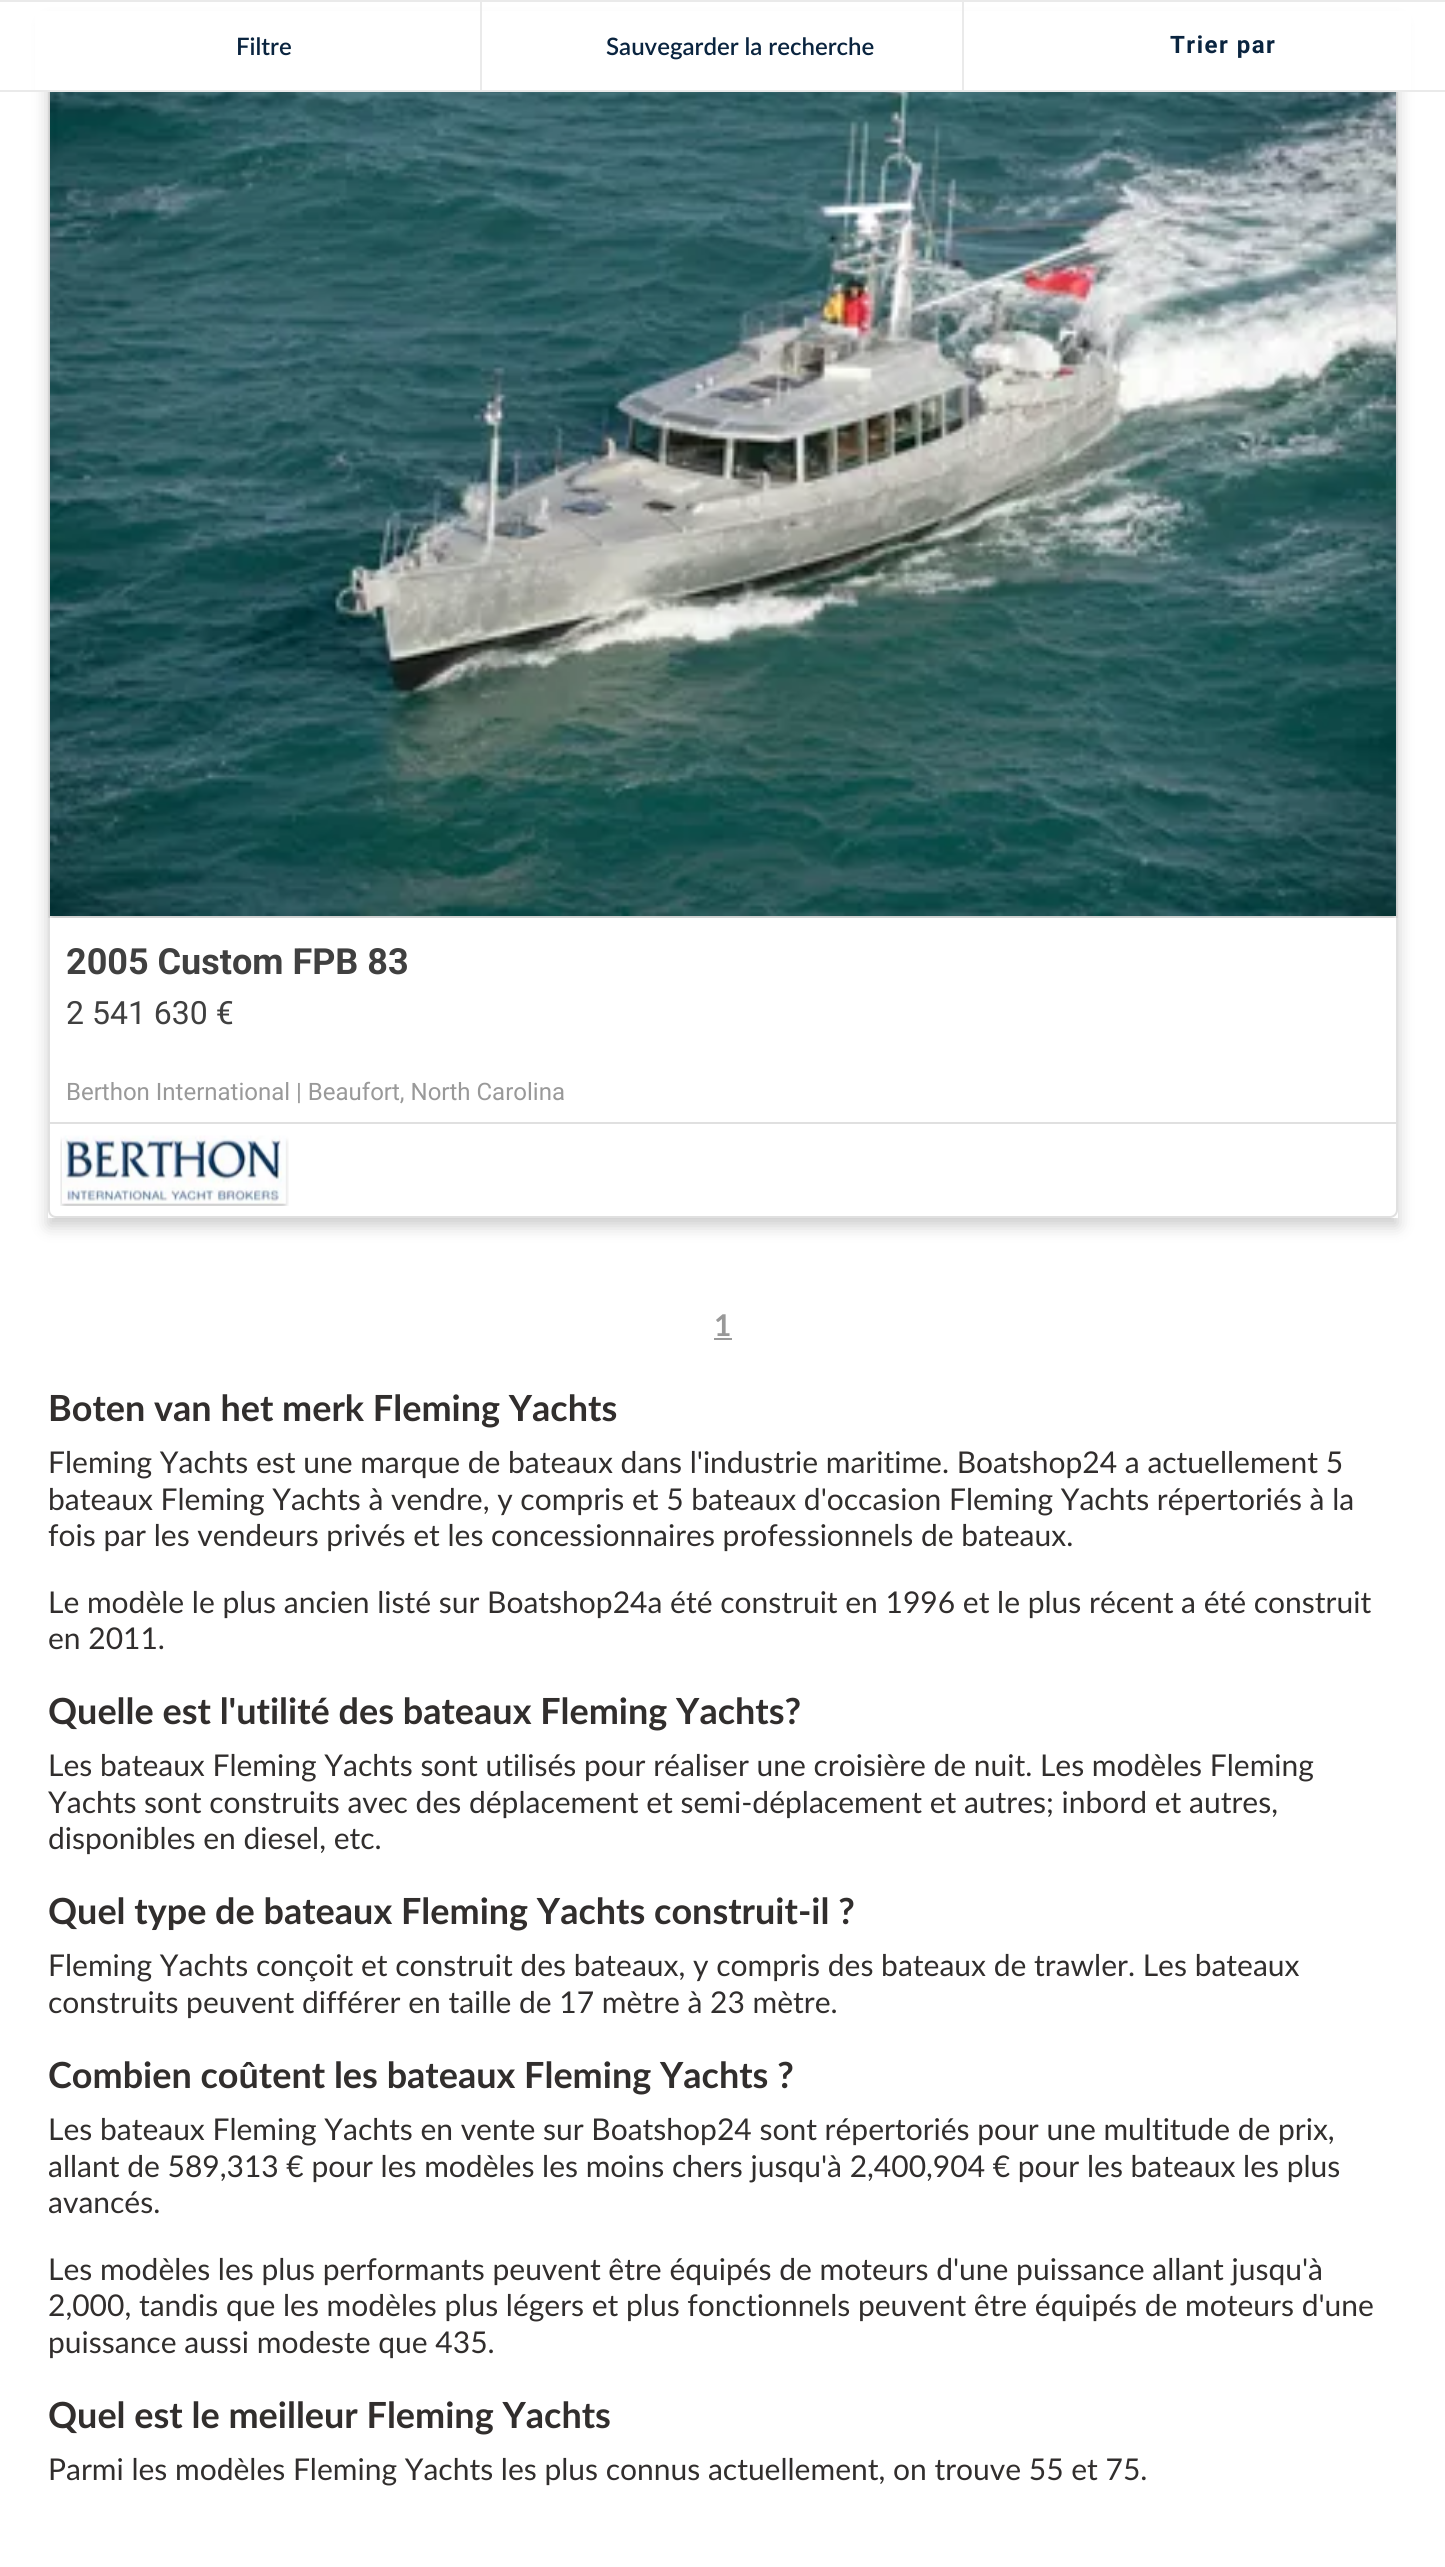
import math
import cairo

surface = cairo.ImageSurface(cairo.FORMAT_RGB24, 1445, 2567)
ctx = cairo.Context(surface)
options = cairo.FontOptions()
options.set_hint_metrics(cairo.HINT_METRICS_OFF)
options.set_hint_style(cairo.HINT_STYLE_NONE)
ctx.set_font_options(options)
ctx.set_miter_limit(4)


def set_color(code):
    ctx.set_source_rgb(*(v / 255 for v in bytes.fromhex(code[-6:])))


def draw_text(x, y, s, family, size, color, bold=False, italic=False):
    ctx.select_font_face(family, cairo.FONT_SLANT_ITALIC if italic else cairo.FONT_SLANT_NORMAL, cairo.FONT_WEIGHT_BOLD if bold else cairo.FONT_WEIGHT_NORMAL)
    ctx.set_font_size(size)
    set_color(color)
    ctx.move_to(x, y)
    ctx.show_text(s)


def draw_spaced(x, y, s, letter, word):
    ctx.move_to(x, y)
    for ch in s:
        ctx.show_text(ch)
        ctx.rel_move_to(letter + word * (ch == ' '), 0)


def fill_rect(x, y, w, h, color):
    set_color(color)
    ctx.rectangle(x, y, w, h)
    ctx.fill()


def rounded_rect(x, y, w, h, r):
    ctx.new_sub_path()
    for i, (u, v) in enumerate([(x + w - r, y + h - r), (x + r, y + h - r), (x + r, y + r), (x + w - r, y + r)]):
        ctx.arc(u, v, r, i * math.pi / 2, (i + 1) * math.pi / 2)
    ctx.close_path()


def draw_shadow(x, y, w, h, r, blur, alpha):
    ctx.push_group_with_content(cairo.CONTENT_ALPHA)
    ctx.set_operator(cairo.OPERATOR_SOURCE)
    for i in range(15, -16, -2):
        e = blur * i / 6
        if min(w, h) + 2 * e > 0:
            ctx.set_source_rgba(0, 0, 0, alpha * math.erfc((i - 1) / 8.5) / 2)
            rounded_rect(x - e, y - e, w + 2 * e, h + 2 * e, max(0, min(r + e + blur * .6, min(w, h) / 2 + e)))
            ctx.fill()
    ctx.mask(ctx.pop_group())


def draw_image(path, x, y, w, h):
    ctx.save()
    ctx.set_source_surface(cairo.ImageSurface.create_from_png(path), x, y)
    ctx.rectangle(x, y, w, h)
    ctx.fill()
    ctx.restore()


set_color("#ffffff")
ctx.paint()
ctx.save()
ctx.set_fill_rule(cairo.FILL_RULE_EVEN_ODD)
ctx.new_path()
ctx.move_to(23, 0)
ctx.line_to(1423, 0)
ctx.line_to(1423, 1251)
ctx.line_to(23, 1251)
ctx.close_path()
ctx.move_to(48, 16)
ctx.line_to(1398, 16)
ctx.line_to(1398, 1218)
ctx.line_to(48, 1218)
ctx.close_path()
ctx.clip()
set_color("#000000")
draw_shadow(48, 24, 1350, 1202, 0, 8, 0.2)
ctx.restore()
rounded_rect(49, 17, 1348, 1200, 7)
set_color("#e0e0e0")
ctx.stroke()
fill_rect(35, 11, 1376, 79, "#ffffff")
fill_rect(0, 0, 1445, 2, "#eaeaea")
fill_rect(0, 90, 1445, 2, "#eaeaea")
fill_rect(480, 2, 2, 88, "#eaeaea")
draw_text(236, 55, "Filtre", "Lato SemiBold", 24, "#0a243f")
fill_rect(962, 2, 2, 88, "#eaeaea")
draw_text(606, 55, "Sauvegarder la recherche", "Lato SemiBold", 24, "#0a243f")
ctx.select_font_face("Roboto", cairo.FONT_SLANT_NORMAL, cairo.FONT_WEIGHT_BOLD)
draw_spaced(1170, 53, "Trier par", 1.5, 0)
draw_image("assets/img1.png", 48, 92, 1350, 826)
draw_text(66, 974, "2005 Custom FPB 83", "Roboto", 36, "#404040", bold=True)
draw_text(66, 1024, "2 541 630 €", "Roboto", 32, "#404040")
draw_text(66, 1100, "Berthon International | Beaufort, North Carolina", "Roboto", 24, "#999999")
fill_rect(50, 1122, 1346, 2, "#e0e0e0")
draw_image("assets/img2.png", 60, 1135, 229, 71)
draw_text(714, 1336, "1", "Lato", 30, "#999999", bold=True)
fill_rect(714, 1338, 18, 2, "#999999")
draw_text(48, 1421, "Boten van het merk Fleming Yachts", "Lato", 36, "#312e2d", bold=True)
draw_text(48, 1473, "Fleming Yachts est une marque de bateaux dans l'industrie maritime. Boatshop24 a actuellement 5", "Lato", 30, "#312e2d")
draw_text(48, 1510, "bateaux Fleming Yachts à vendre, y compris et 5 bateaux d'occasion Fleming Yachts répertoriés à la", "Lato", 30, "#312e2d")
draw_text(48, 1546, "fois par les vendeurs privés et les concessionnaires professionnels de bateaux.", "Lato", 30, "#312e2d")
draw_text(48, 1613, "Le modèle le plus ancien listé sur Boatshop24a été construit en 1996 et le plus récent a été construit", "Lato", 30, "#312e2d")
draw_text(48, 1649, "en 2011.", "Lato", 30, "#312e2d")
draw_text(48, 1724, "Quelle est l'utilité des bateaux Fleming Yachts?", "Lato", 36, "#312e2d", bold=True)
draw_text(48, 1776, "Les bateaux Fleming Yachts sont utilisés pour réaliser une croisière de nuit. Les modèles Fleming", "Lato", 30, "#312e2d")
draw_text(48, 1813, "Yachts sont construits avec des déplacement et semi-déplacement et autres; inbord et autres,", "Lato", 30, "#312e2d")
draw_text(48, 1849, "disponibles en diesel, etc.", "Lato", 30, "#312e2d")
draw_text(48, 1924, "Quel type de bateaux Fleming Yachts construit-il ?", "Lato", 36, "#312e2d", bold=True)
draw_text(48, 1976, "Fleming Yachts conçoit et construit des bateaux, y compris des bateaux de trawler. Les bateaux", "Lato", 30, "#312e2d")
draw_text(48, 2013, "construits peuvent différer en taille de 17 mètre à 23 mètre.", "Lato", 30, "#312e2d")
draw_text(48, 2088, "Combien coûtent les bateaux Fleming Yachts ?", "Lato", 36, "#312e2d", bold=True)
draw_text(48, 2140, "Les bateaux Fleming Yachts en vente sur Boatshop24 sont répertoriés pour une multitude de prix,", "Lato", 30, "#312e2d")
draw_text(48, 2177, "allant de 589,313 € pour les modèles les moins chers jusqu'à 2,400,904 € pour les bateaux les plus", "Lato", 30, "#312e2d")
draw_text(48, 2213, "avancés.", "Lato", 30, "#312e2d")
draw_text(48, 2280, "Les modèles les plus performants peuvent être équipés de moteurs d'une puissance allant jusqu'à", "Lato", 30, "#312e2d")
draw_text(48, 2316, "2,000, tandis que les modèles plus légers et plus fonctionnels peuvent être équipés de moteurs d'une", "Lato", 30, "#312e2d")
draw_text(48, 2353, "puissance aussi modeste que 435.", "Lato", 30, "#312e2d")
draw_text(48, 2428, "Quel est le meilleur Fleming Yachts", "Lato", 36, "#312e2d", bold=True)
draw_text(48, 2480, "Parmi les modèles Fleming Yachts les plus connus actuellement, on trouve 55 et 75.", "Lato", 30, "#312e2d")
surface.write_to_png("output.png")
